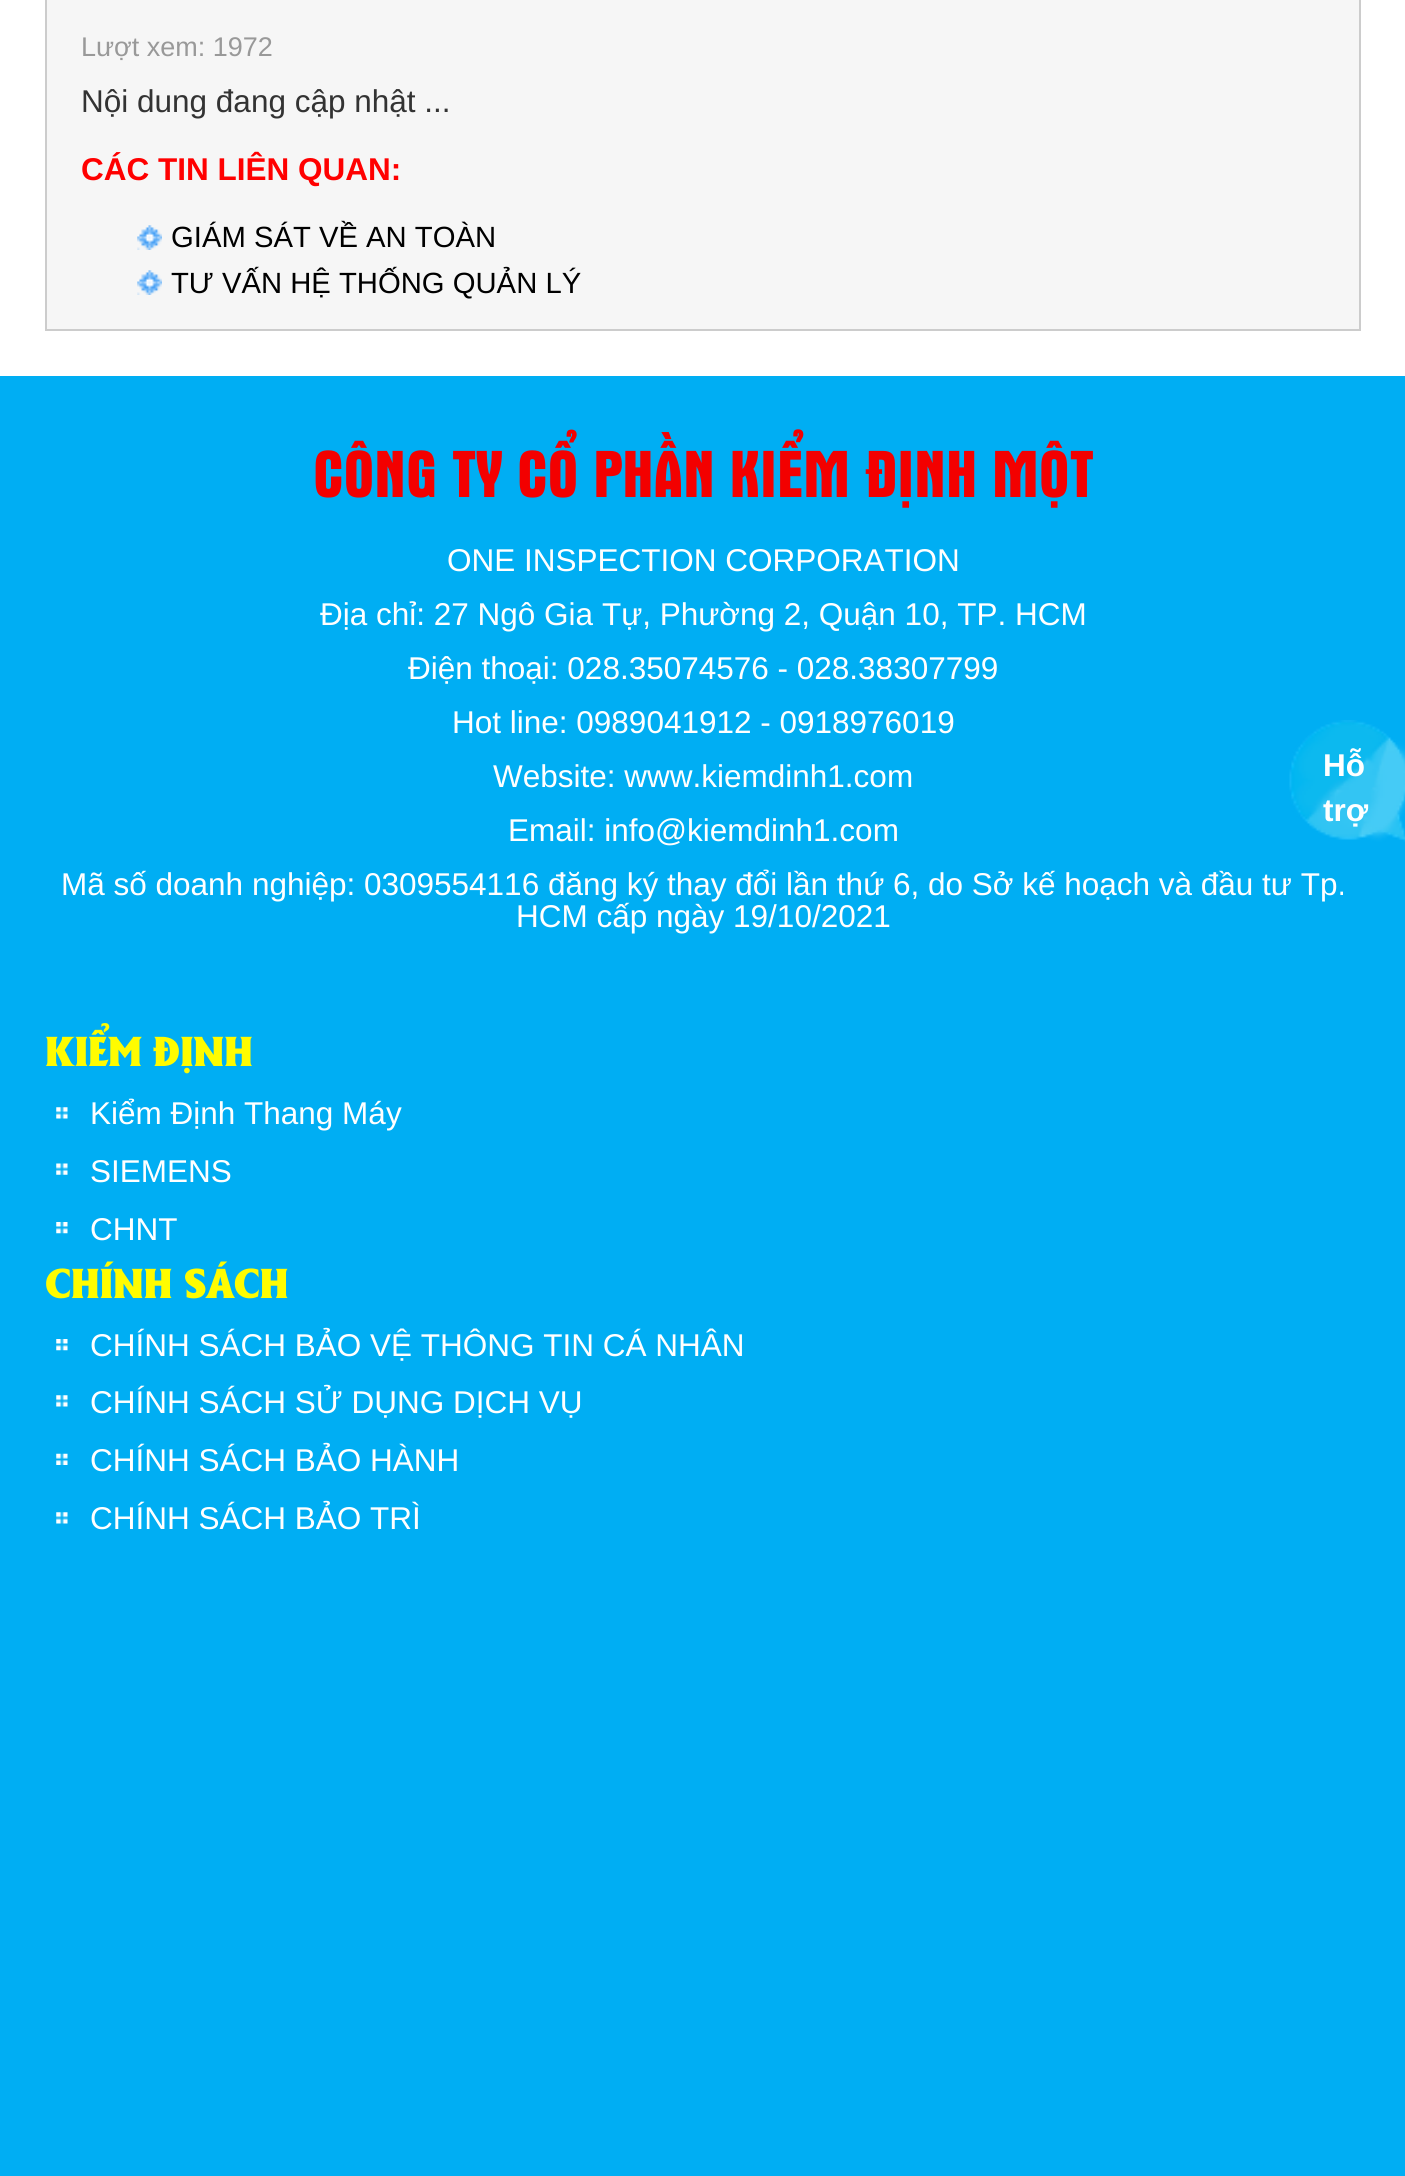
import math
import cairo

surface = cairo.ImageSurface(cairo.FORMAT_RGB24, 1405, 2176)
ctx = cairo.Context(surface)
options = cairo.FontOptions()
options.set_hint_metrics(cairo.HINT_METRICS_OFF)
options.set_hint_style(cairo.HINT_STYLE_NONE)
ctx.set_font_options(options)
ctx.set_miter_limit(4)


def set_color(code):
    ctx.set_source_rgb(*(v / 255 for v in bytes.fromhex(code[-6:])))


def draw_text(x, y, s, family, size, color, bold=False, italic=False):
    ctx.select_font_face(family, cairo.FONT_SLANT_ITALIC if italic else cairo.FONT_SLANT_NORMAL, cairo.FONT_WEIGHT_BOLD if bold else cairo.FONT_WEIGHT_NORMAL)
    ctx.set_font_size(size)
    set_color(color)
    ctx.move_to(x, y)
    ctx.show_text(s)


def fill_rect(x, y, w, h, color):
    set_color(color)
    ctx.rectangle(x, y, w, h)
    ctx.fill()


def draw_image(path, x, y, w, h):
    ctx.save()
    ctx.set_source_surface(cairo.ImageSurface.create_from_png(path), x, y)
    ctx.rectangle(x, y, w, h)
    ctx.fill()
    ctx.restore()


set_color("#ffffff")
ctx.paint()
set_color("#f6f6f6")
ctx.rectangle(46, -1, 1314, 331)
ctx.fill_preserve()
set_color("#cccccc")
ctx.stroke()
draw_text(81, 56, "Lượt xem: 1972", "Liberation Sans", 27, "#999999")
draw_text(81, 112, "Nội dung đang cập nhật ...", "Liberation Sans", 31.5, "#333333")
draw_text(81, 180, "CÁC TIN LIÊN QUAN:", "Liberation Sans", 31.5, "#ff0000", bold=True)
draw_image("assets/img1.png", 137, 225, 25, 25)
draw_text(171, 247, "GIÁM SÁT VỀ AN TOÀN", "Liberation Sans", 29.25, "#000000")
draw_image("assets/img1.png", 137, 270, 25, 25)
draw_text(171, 293, "TƯ VẤN HỆ THỐNG QUẢN LÝ", "Liberation Sans", 29.25, "#000000")
fill_rect(0, 376, 1405, 1800, "#00aef3")
draw_text(313, 497, "CÔNG TY CỔ PHẦN KIỂM ĐỊNH MỘT", "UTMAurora", 67.5, "#f30000")
draw_text(447, 571, "ONE INSPECTION CORPORATION", "Liberation Sans", 31.5, "#ffffff")
draw_text(320, 625, "Địa chỉ: 27 Ngô Gia Tự, Phường 2, Quận 10, TP. HCM", "Liberation Sans", 31.5, "#ffffff")
draw_text(408, 679, "Điện thoại: 028.35074576 - 028.38307799", "Liberation Sans", 31.5, "#ffffff")
draw_text(452, 733, "Hot line: 0989041912 - 0918976019", "Liberation Sans", 31.5, "#ffffff")
draw_text(493, 787, "Website: www.kiemdinh1.com", "Liberation Sans", 31.5, "#ffffff")
draw_text(508, 841, "Email: info@kiemdinh1.com", "Liberation Sans", 31.5, "#ffffff")
draw_text(61, 895, "Mã số doanh nghiệp: 0309554116 đăng ký thay đổi lần thứ 6, do Sở kế hoạch và đầu tư Tp.", "Liberation Sans", 31.5, "#ffffff")
draw_text(516, 927, "HCM cấp ngày 19/10/2021", "Liberation Sans", 31.5, "#ffffff")
draw_text(45, 1066, "KIỂM ĐỊNH", "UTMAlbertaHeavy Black", 40.5, "#fffc00")
draw_image("assets/img2.png", 56, 1107, 12, 12)
draw_text(90, 1124, "Kiểm Định Thang Máy", "Liberation Sans", 31.5, "#ffffff")
draw_image("assets/img3.png", 56, 1163, 12, 12)
draw_text(90, 1182, "SIEMENS", "Liberation Sans", 31.5, "#ffffff")
draw_image("assets/img4.png", 56, 1222, 12, 12)
draw_text(90, 1240, "CHNT", "Liberation Sans", 31.5, "#ffffff")
draw_text(45, 1298, "CHÍNH SÁCH", "UTMAlbertaHeavy Black", 40.5, "#fffc00")
draw_image("assets/img4.png", 56, 1339, 12, 12)
draw_text(90, 1356, "CHÍNH SÁCH BẢO VỆ THÔNG TIN CÁ NHÂN", "Liberation Sans", 31.5, "#ffffff")
draw_image("assets/img2.png", 56, 1395, 12, 12)
draw_text(90, 1413, "CHÍNH SÁCH SỬ DỤNG DỊCH VỤ", "Liberation Sans", 31.5, "#ffffff")
draw_image("assets/img5.png", 56, 1453, 12, 12)
draw_text(90, 1471, "CHÍNH SÁCH BẢO HÀNH", "Liberation Sans", 31.5, "#ffffff")
draw_image("assets/img2.png", 56, 1512, 12, 12)
draw_text(90, 1529, "CHÍNH SÁCH BẢO TRÌ", "Liberation Sans", 31.5, "#ffffff")
draw_image("assets/img6.png", 1289, 720, 116, 122)
draw_text(1323, 776, "Hỗ", "Liberation Sans", 31.5, "#ffffff", bold=True)
draw_text(1323, 821, "trợ", "Liberation Sans", 31.5, "#ffffff", bold=True)
surface.write_to_png("output.png")
